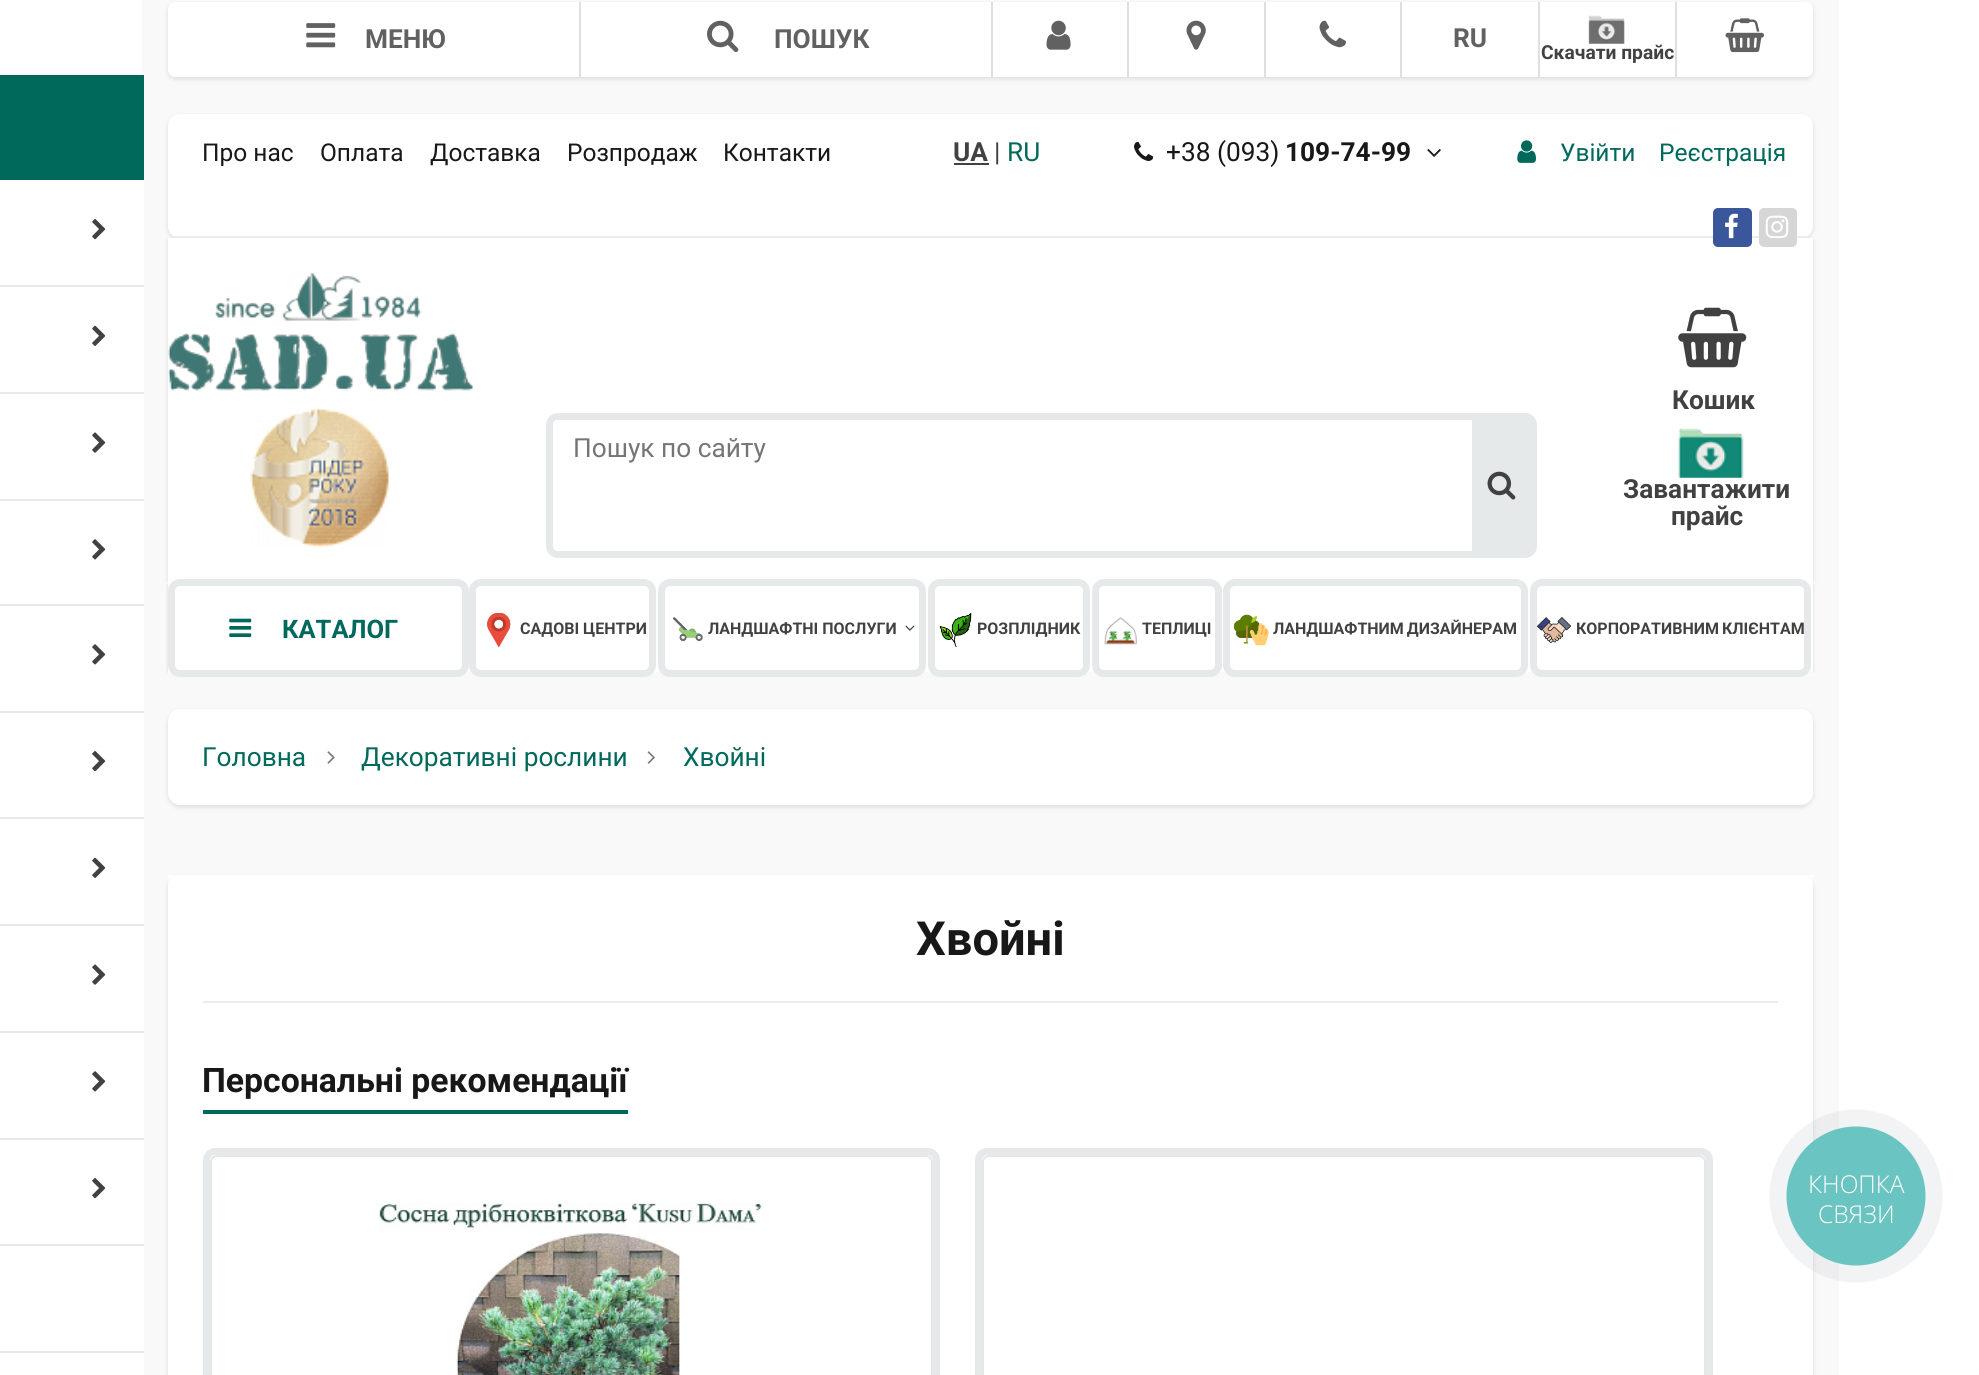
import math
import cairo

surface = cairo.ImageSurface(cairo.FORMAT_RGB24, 1979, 1375)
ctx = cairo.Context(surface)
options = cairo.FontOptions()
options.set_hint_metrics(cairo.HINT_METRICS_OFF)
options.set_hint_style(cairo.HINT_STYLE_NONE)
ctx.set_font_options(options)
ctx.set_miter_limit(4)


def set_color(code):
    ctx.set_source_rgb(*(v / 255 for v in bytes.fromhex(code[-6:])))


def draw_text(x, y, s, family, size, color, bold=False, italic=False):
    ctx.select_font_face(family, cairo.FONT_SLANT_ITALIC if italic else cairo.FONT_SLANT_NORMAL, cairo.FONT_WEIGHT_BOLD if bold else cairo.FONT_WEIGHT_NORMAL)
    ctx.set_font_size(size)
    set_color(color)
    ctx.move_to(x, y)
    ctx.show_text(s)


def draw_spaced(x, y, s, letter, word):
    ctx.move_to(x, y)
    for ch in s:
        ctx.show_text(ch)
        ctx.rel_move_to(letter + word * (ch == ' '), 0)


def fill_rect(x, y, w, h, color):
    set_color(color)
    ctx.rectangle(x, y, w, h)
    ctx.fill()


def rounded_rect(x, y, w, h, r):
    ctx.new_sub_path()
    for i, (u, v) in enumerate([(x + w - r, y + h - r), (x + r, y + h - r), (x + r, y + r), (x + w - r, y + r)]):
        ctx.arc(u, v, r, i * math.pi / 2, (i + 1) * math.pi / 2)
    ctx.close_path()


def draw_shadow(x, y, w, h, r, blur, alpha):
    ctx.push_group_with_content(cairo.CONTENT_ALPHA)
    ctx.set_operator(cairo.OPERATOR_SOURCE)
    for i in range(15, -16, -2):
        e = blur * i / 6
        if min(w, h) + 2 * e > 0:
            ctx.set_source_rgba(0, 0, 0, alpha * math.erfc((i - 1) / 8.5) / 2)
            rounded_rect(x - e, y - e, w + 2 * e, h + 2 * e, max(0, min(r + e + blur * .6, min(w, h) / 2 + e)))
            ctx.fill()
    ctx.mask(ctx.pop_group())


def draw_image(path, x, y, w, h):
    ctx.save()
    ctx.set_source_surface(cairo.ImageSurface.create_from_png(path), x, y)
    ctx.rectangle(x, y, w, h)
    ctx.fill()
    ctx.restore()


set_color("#ffffff")
ctx.paint()
fill_rect(142, 0, 1697, 114, "#faf9f9")
set_color("#000000")
draw_shadow(168, 4, 1645, 75, 7, 2.5, 0.12)
set_color("#ffffff")
rounded_rect(168, 2, 1645, 75, 7)
ctx.fill()
draw_image("assets/img1.png", 306, 23, 30, 25)
draw_text(365, 48, "МЕНЮ", "Roboto", 26.25, "#616161", bold=True)
fill_rect(579, 2, 2, 75, "#dfdfdf")
draw_image("assets/img2.png", 707, 20, 32, 32)
draw_text(774, 48, "ПОШУК", "Roboto", 26.25, "#616161", bold=True)
fill_rect(991, 2, 2, 75, "#dfdfdf")
draw_image("assets/img3.png", 1046, 20, 25, 30)
fill_rect(1127, 2, 2, 75, "#dfdfdf")
draw_image("assets/img4.png", 1186, 20, 20, 30)
fill_rect(1264, 2, 2, 75, "#dfdfdf")
draw_image("assets/img5.png", 1319, 20, 27, 28)
fill_rect(1400, 2, 2, 75, "#dfdfdf")
draw_text(1453, 47, "RU", "Roboto", 26.25, "#616161", bold=True)
fill_rect(1675, 2, 2, 75, "#dfdfdf")
draw_image("assets/img6.png", 1725, 18, 40, 35)
fill_rect(1538, 2, 2, 75, "#dfdfdf")
draw_image("assets/img7.png", 1588, 15, 37, 29)
draw_text(1541, 59, "Скачати прайс", "Roboto", 19.25, "#414141", bold=True)
fill_rect(0, 75, 144, 105, "#00695c")
fill_rect(0, 285, 144, 2, "#e6eaed")
draw_image("assets/img8.png", 92, 219, 14, 21)
fill_rect(0, 392, 144, 2, "#e6eaed")
draw_image("assets/img9.png", 92, 325, 14, 21)
fill_rect(0, 499, 144, 2, "#e6eaed")
draw_image("assets/img10.png", 92, 432, 14, 21)
fill_rect(0, 604, 144, 2, "#e6eaed")
draw_image("assets/img11.png", 92, 539, 14, 21)
fill_rect(0, 711, 144, 2, "#e6eaed")
draw_image("assets/img11.png", 92, 644, 14, 21)
fill_rect(0, 817, 144, 2, "#e6eaed")
draw_image("assets/img8.png", 92, 751, 14, 21)
fill_rect(0, 924, 144, 2, "#e6eaed")
draw_image("assets/img9.png", 92, 857, 14, 21)
fill_rect(0, 1031, 144, 2, "#e6eaed")
draw_image("assets/img10.png", 92, 964, 14, 21)
fill_rect(0, 1138, 144, 2, "#e6eaed")
draw_image("assets/img11.png", 92, 1071, 14, 21)
fill_rect(0, 1244, 144, 2, "#e6eaed")
draw_image("assets/img8.png", 92, 1178, 14, 21)
fill_rect(0, 1351, 144, 2, "#e6eaed")
fill_rect(144, 114, 1695, 1261, "#faf9f9")
set_color("#000000")
draw_shadow(168, 116, 1645, 124, 12, 2.5, 0.12)
set_color("#ffffff")
rounded_rect(168, 114, 1645, 124, 12)
ctx.fill()
fill_rect(175, 236, 1633, 2, "#f0f0f0")
draw_text(202, 161, "Про нас", "Roboto", 24.5, "#181818")
draw_text(320, 161, "Оплата", "Roboto", 24.5, "#181818")
draw_text(430, 161, "Доставка", "Roboto", 24.5, "#181818")
draw_text(567, 161, "Розпродаж", "Roboto", 24.5, "#181818")
draw_text(723, 161, "Контакти", "Roboto", 24.5, "#181818")
draw_text(953, 161, "UA", "Roboto", 26.25, "#414141", bold=True)
fill_rect(954, 163, 35, 2, "#414141")
draw_text(994, 161, "|", "Roboto", 26.25, "#414141")
draw_text(1007, 161, "RU", "Roboto", 26.25, "#00695c")
draw_image("assets/img12.png", 1134, 141, 20, 20)
draw_text(1166, 161, "+38 (093)", "Roboto", 26.25, "#181818")
draw_text(1285, 161, "109-74-99", "Roboto", 26.25, "#181818", bold=True)
draw_image("assets/img13.png", 1427, 149, 14, 8)
draw_image("assets/img14.png", 1517, 140, 19, 23)
draw_text(1560, 161, "Увійти", "Roboto", 24.5, "#00695c")
draw_text(1659, 161, "Реєстрація", "Roboto", 24.5, "#00695c")
set_color("#000000")
draw_shadow(168, 240, 1645, 341, 0, 2.5, 0.12)
fill_rect(168, 238, 1645, 434, "#ffffff")
set_color("#39579a")
rounded_rect(1713, 208, 39, 39, 5)
ctx.fill()
draw_image("assets/img15.png", 1725, 213, 13, 26)
set_color("#d6d6d6")
rounded_rect(1759, 208, 38, 39, 5)
ctx.fill()
draw_image("assets/img16.png", 1765, 215, 24, 24)
draw_image("assets/img17.png", 168, 273, 305, 118)
draw_image("assets/img18.png", 250, 408, 140, 139)
rounded_rect(549.5, 416.5, 984, 138, 8.5)
set_color("#e6e9ea")
ctx.set_line_width(7)
ctx.stroke()
set_color("#ffffff")
ctx.new_path()
ctx.move_to(557, 420)
ctx.line_to(1472, 420)
ctx.line_to(1472, 476)
ctx.line_to(557, 476)
ctx.curve_to(555, 476, 553, 474, 553, 472)
ctx.line_to(553, 424)
ctx.curve_to(553, 422, 555, 420, 557, 420)
ctx.close_path()
ctx.fill()
draw_text(573, 457, "Пошук по сайту", "Roboto", 26.25, "#757575")
fill_rect(1472, 420, 58, 131, "#e6e9ea")
draw_image("assets/img19.png", 1487, 471, 29, 29)
draw_image("assets/img20.png", 1678, 307, 69, 61)
draw_text(1672, 409, "Кошик", "Roboto", 26.25, "#414141", bold=True)
draw_image("assets/img21.png", 1678, 428, 66, 50)
draw_text(1623, 498, "Завантажити", "Roboto", 26.25, "#414141", bold=True)
draw_text(1671, 525, "прайс", "Roboto", 26.25, "#414141", bold=True)
ctx.save()
ctx.rectangle(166, 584, 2, 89)
ctx.clip()
set_color("#000000")
draw_shadow(168, 585, 1635, 87, 0, 2.5, 0.12)
ctx.restore()
ctx.save()
ctx.rectangle(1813, 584, 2, 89)
ctx.clip()
set_color("#000000")
draw_shadow(179, 585, 1634, 87, 0, 2.5, 0.12)
ctx.restore()
rounded_rect(171.5, 582.5, 294, 91, 8.5)
set_color("#e6e9ea")
ctx.stroke()
draw_image("assets/img22.png", 229, 618, 23, 19)
draw_text(282, 638, "КАТАЛОГ", "Roboto", 25.5, "#00695c", bold=True)
rounded_rect(472.5, 582.5, 180, 91, 8.5)
set_color("#e6e9ea")
ctx.stroke()
draw_image("assets/img23.png", 487, 613, 24, 35)
draw_text(520, 634, "САДОВІ ЦЕНТРИ", "Roboto", 16, "#414141", bold=True)
rounded_rect(661.5, 582.5, 261, 91, 8.5)
set_color("#e6e9ea")
ctx.stroke()
draw_image("assets/img24.png", 673, 617, 30, 25)
draw_text(708, 634, "ЛАНДШАФТНІ ПОСЛУГИ", "Roboto", 16, "#414141", bold=True)
draw_image("assets/img25.png", 905, 625, 10, 6)
rounded_rect(931.5, 582.5, 155, 91, 8.5)
set_color("#e6e9ea")
ctx.stroke()
draw_image("assets/img26.png", 939, 613, 33, 34)
draw_text(977, 634, "РОЗПЛІДНИК", "Roboto", 16, "#414141", bold=True)
rounded_rect(1095.5, 582.5, 123, 91, 8.5)
set_color("#e6e9ea")
ctx.stroke()
draw_image("assets/img27.png", 1104, 617, 34, 28)
draw_text(1142, 634, "ТЕПЛИЦІ", "Roboto", 16, "#414141", bold=True)
rounded_rect(1226.5, 582.5, 298, 91, 8.5)
set_color("#e6e9ea")
ctx.stroke()
draw_image("assets/img28.png", 1234, 614, 35, 32)
set_color("#414141")
draw_spaced(1273, 634, "ЛАНДШАФТНИМ ДИЗАЙНЕРАМ", 0, -1)
rounded_rect(1533.5, 582.5, 274, 91, 8.5)
set_color("#e6e9ea")
ctx.stroke()
draw_image("assets/img29.png", 1537, 617, 34, 26)
set_color("#414141")
draw_spaced(1576, 634, "КОРПОРАТИВНИМ КЛІЄНТАМ", 0, -1)
set_color("#000000")
draw_shadow(168, 711, 1645, 96, 12, 2.5, 0.12)
set_color("#ffffff")
rounded_rect(168, 709, 1645, 96, 12)
ctx.fill()
draw_text(202, 766, "Головна", "Roboto", 26.25, "#00695c")
draw_image("assets/img30.png", 327, 751, 8, 13)
draw_text(361, 766, "Декоративні рослини", "Roboto", 26.25, "#00695c")
draw_image("assets/img31.png", 647, 751, 8, 13)
draw_text(683, 766, "Хвойні", "Roboto", 26.25, "#00695c")
fill_rect(168, 875, 1645, 12, "#ffffff")
set_color("#000000")
draw_shadow(168, 877, 1645, 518, 12, 2.5, 0.12)
set_color("#ffffff")
rounded_rect(168, 875, 1645, 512, 12)
ctx.fill()
fill_rect(203, 1001, 1575, 2, "#ededed")
draw_text(916, 955, "Хвойні", "Roboto", 47, "#181818", bold=True)
fill_rect(203, 1110, 425, 4, "#00695c")
draw_text(202, 1092, "Персональні рекомендації", "Roboto", 33.75, "#181818", bold=True)
rounded_rect(206.5, 1151.5, 730, 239, 8.5)
set_color("#e6e9ea")
ctx.stroke()
rounded_rect(211, 1156, 721, 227, 6)
set_color("#e6e6e6")
ctx.set_line_width(2)
ctx.stroke()
draw_image("assets/img32.png", 379, 1202, 387, 173)
rounded_rect(978.5, 1151.5, 731, 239, 8.5)
set_color("#e6e9ea")
ctx.set_line_width(7)
ctx.stroke()
rounded_rect(983, 1156, 722, 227, 6)
set_color("#e6e6e6")
ctx.set_line_width(2)
ctx.stroke()
ctx.set_source_rgba(0.165, 0.251, 0.365, 0.06)
ctx.arc(1856, 1196, 86.5, 0, 2 * math.pi)
ctx.fill()
set_color("#6ac4c1")
ctx.arc(1856, 1196, 69.5, 0, 2 * math.pi)
ctx.fill()
draw_text(1808, 1193, "КНОПКА", "Open Sans Light", 24.5, "#ffffff")
draw_text(1818, 1223, "СВЯЗИ", "Open Sans Light", 24.5, "#ffffff")
surface.write_to_png("output.png")
